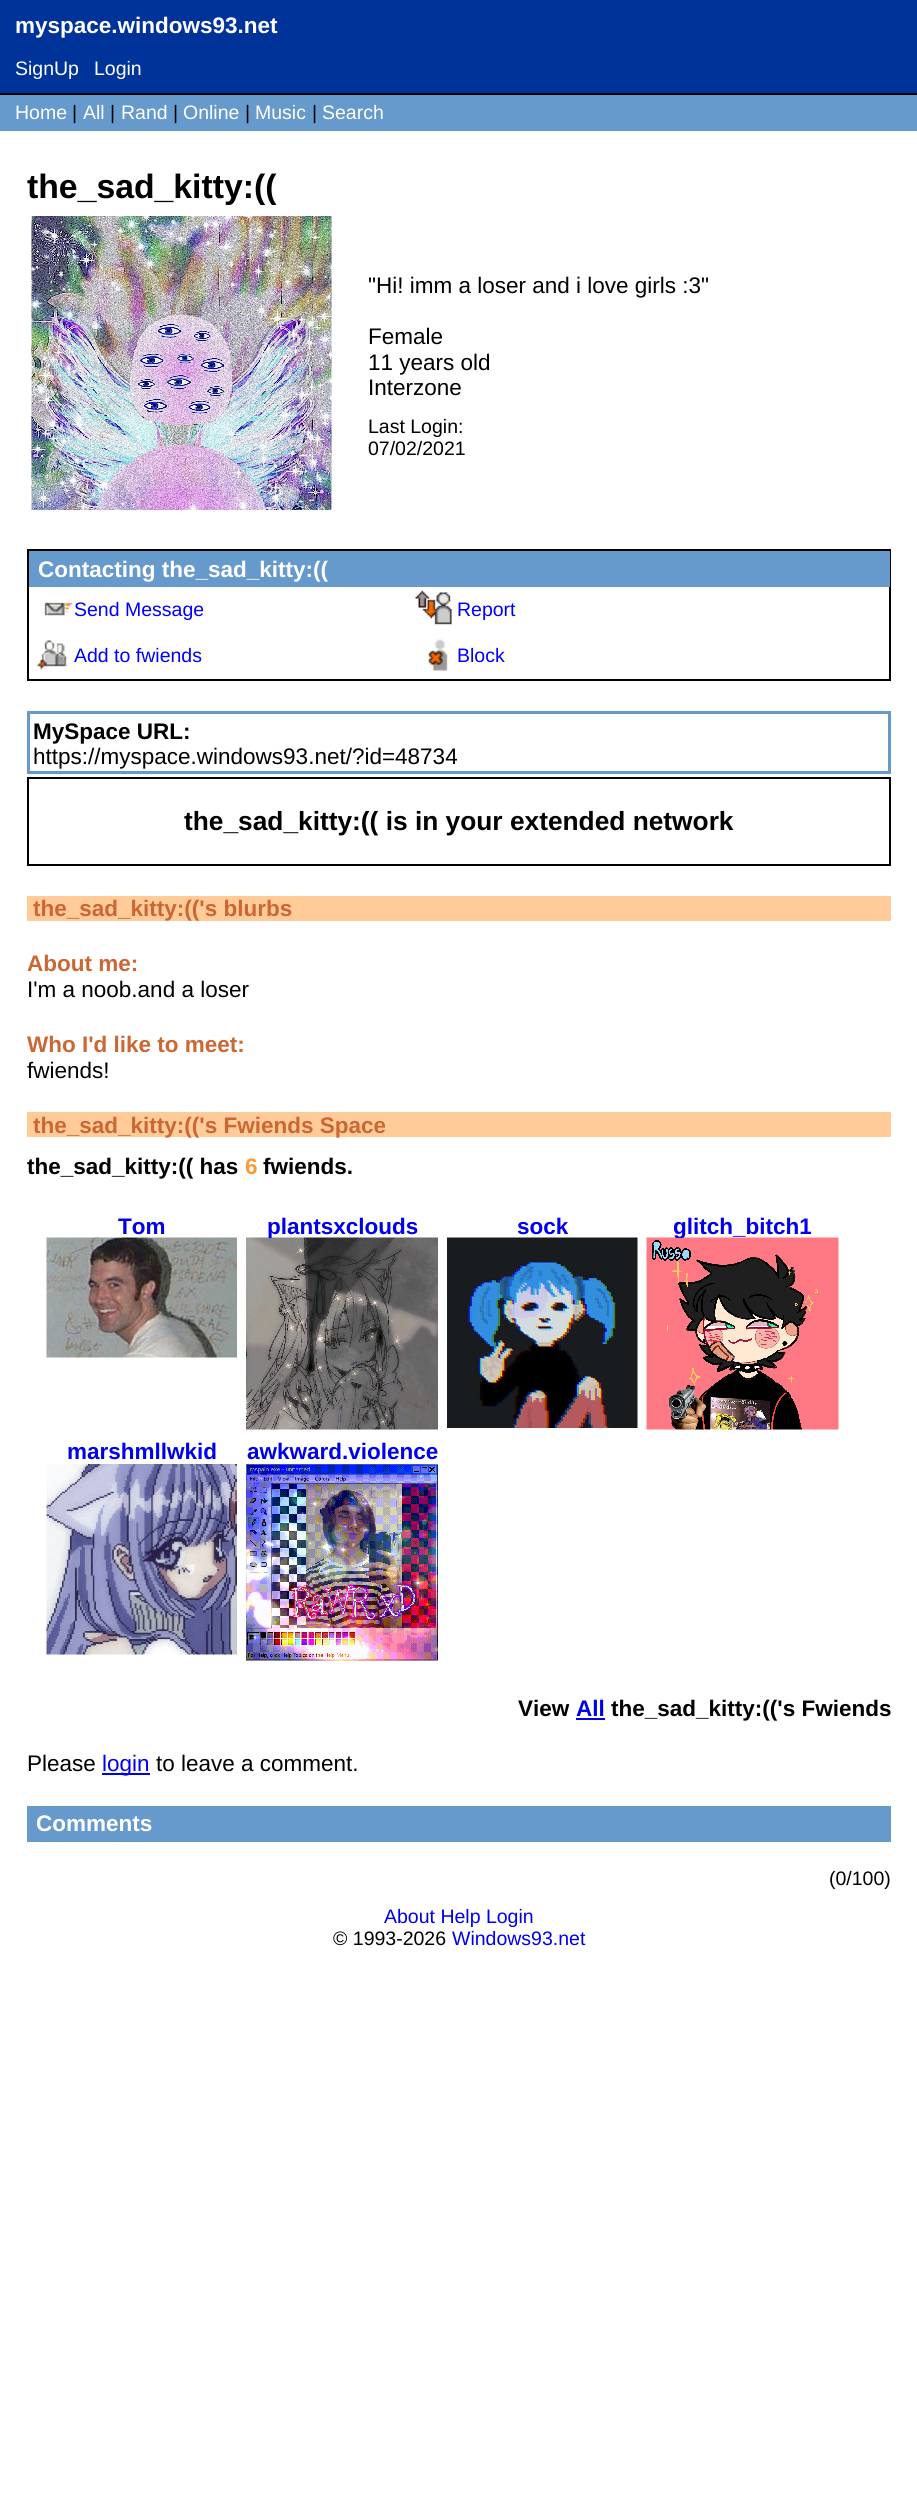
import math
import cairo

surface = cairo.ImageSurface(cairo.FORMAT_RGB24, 917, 2493)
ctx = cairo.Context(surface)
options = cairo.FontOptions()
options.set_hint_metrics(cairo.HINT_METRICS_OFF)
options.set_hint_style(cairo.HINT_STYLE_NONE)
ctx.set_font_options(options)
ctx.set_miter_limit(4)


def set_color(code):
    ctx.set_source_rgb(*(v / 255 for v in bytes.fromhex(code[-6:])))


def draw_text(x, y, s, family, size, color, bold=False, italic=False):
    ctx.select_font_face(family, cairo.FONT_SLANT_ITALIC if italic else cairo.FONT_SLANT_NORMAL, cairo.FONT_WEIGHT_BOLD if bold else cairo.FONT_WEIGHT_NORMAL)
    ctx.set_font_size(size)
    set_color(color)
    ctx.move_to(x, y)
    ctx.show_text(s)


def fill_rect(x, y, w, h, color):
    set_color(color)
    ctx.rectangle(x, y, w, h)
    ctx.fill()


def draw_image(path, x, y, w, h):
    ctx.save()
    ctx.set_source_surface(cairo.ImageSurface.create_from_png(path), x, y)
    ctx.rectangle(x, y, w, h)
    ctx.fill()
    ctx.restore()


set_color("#ffffff")
ctx.paint()
fill_rect(0, 0, 917, 93, "#003399")
fill_rect(0, 93, 917, 2, "#000000")
draw_text(15, 33, "myspace.windows93.net", "Liberation Sans", 22.5, "#ffffff", bold=True)
draw_text(15, 75, "SignUp", "Liberation Sans", 19.5, "#ffffff")
draw_text(94, 75, "Login", "Liberation Sans", 19.5, "#ffffff")
fill_rect(0, 95, 917, 36, "#6699cc")
draw_text(15, 119, "Home", "Liberation Sans", 19.5, "#ffffff")
draw_text(72, 119, "|", "Liberation Sans", 19.5, "#000000")
draw_text(83, 119, "All", "Liberation Sans", 19.5, "#ffffff")
draw_text(110, 119, "|", "Liberation Sans", 19.5, "#000000")
draw_text(121, 119, "Rand", "Liberation Sans", 19.5, "#ffffff")
draw_text(173, 119, "|", "Liberation Sans", 19.5, "#000000")
draw_text(183, 119, "Online", "Liberation Sans", 19.5, "#ffffff")
draw_text(245, 119, "|", "Liberation Sans", 19.5, "#000000")
draw_text(255, 119, "Music", "Liberation Sans", 19.5, "#ffffff")
draw_text(312, 119, "|", "Liberation Sans", 19.5, "#000000")
draw_text(322, 119, "Search", "Liberation Sans", 19.5, "#ffffff")
draw_text(27, 198, "the_sad_kitty:((", "Liberation Sans", 33.75, "#000000", bold=True)
draw_image("assets/img1.png", 31, 216, 301, 294)
draw_text(368, 293, "\"Hi! imm a loser and i love girls :3\"", "Liberation Sans", 22.5, "#000000")
draw_text(368, 344, "Female", "Liberation Sans", 22.5, "#000000")
draw_text(368, 370, "11 years old", "Liberation Sans", 22.5, "#000000")
draw_text(368, 395, "Interzone", "Liberation Sans", 22.5, "#000000")
draw_text(368, 433, "Last Login:", "Liberation Sans", 19.5, "#000000")
draw_text(368, 455, "07/02/2021", "Liberation Sans", 19.5, "#000000")
ctx.rectangle(28, 550, 862, 130)
ctx.stroke()
fill_rect(29, 551, 861, 36, "#6699cc")
draw_text(38, 577, "Contacting the_sad_kitty:((", "Liberation Sans", 22.5, "#ffffff", bold=True)
draw_image("assets/img2.png", 44, 602, 29, 14)
draw_text(74, 616, "Send Message", "Liberation Sans", 19.5, "#0000ff")
draw_image("assets/img3.png", 415, 590, 37, 35)
draw_text(457, 616, "Report", "Liberation Sans", 19.5, "#0000ff")
draw_image("assets/img4.png", 37, 640, 30, 30)
draw_text(74, 662, "Add to fwiends", "Liberation Sans", 19.5, "#0000ff")
draw_image("assets/img5.png", 427, 639, 21, 32)
draw_text(457, 662, "Block", "Liberation Sans", 19.5, "#0000ff")
ctx.rectangle(28.5, 712.5, 861, 60)
set_color("#6699cc")
ctx.set_line_width(3)
ctx.stroke()
draw_text(33, 739, "MySpace URL:", "Liberation Sans", 22.5, "#000000", bold=True)
draw_text(33, 764, "https://myspace.windows93.net/?id=48734", "Liberation Sans", 22.5, "#000000")
ctx.rectangle(28, 778, 862, 87)
ctx.set_line_width(2)
ctx.stroke()
draw_text(184, 830, "the_sad_kitty:(( is in your extended network", "Liberation Sans", 26.3, "#000000", bold=True)
fill_rect(27, 896, 864, 25, "#ffcc99")
draw_text(33, 916, "the_sad_kitty:(('s blurbs", "Liberation Sans", 22.5, "#cc6633", bold=True)
draw_text(27, 971, "About me:", "Liberation Sans", 22.5, "#cc6633", bold=True)
draw_text(27, 997, "I'm a noob.and a loser", "Liberation Sans", 22.5, "#000000")
draw_text(27, 1052, "Who I'd like to meet:", "Liberation Sans", 22.5, "#cc6633", bold=True)
draw_text(27, 1078, "fwiends!", "Liberation Sans", 22.5, "#000000")
fill_rect(27, 1112, 864, 25, "#ffcc99")
draw_text(33, 1133, "the_sad_kitty:(('s Fwiends Space", "Liberation Sans", 22.5, "#cc6633", bold=True)
draw_text(27, 1174, "the_sad_kitty:(( has", "Liberation Sans", 22.5, "#000000", bold=True)
draw_text(245, 1174, "6", "Liberation Sans", 22.5, "#ff9933", bold=True)
draw_text(263, 1174, "fwiends.", "Liberation Sans", 22.5, "#000000", bold=True)
draw_text(118, 1234, "Tom", "Liberation Sans", 22.5, "#0000ee", bold=True)
draw_image("assets/img6.png", 46, 1237, 191, 121)
draw_image("assets/img7.png", 246, 1237, 192, 193)
ctx.save()
ctx.rectangle(246, 1212, 192, 26)
ctx.clip()
draw_text(267, 1234, "plantsxclouds", "Liberation Sans", 22.5, "#0000ee", bold=True)
ctx.restore()
draw_text(517, 1234, "sock", "Liberation Sans", 22.5, "#0000ee", bold=True)
draw_image("assets/img8.png", 447, 1237, 191, 191)
draw_image("assets/img9.png", 646, 1237, 193, 193)
ctx.save()
ctx.rectangle(647, 1212, 192, 26)
ctx.clip()
draw_text(673, 1234, "glitch_bitch1", "Liberation Sans", 22.5, "#0000ee", bold=True)
ctx.restore()
draw_text(67, 1459, "marshmllwkid", "Liberation Sans", 22.5, "#0000ee", bold=True)
draw_image("assets/img10.png", 46, 1464, 191, 191)
draw_text(247, 1459, "awkward.violence", "Liberation Sans", 22.5, "#0000ee", bold=True)
draw_image("assets/img11.png", 246, 1464, 192, 197)
draw_text(518, 1716, "View", "Liberation Sans", 22.5, "#000000", bold=True)
draw_text(576, 1716, "All", "Liberation Sans", 22.5, "#0000ee", bold=True)
fill_rect(576, 1718, 29, 2, "#0000ee")
draw_text(611, 1716, "the_sad_kitty:(('s Fwiends", "Liberation Sans", 22.5, "#000000", bold=True)
draw_text(27, 1771, "Please", "Liberation Sans", 22.5, "#000000")
fill_rect(102, 1773, 48, 2, "#0000ee")
draw_text(102, 1771, "login", "Liberation Sans", 22.5, "#0000ee")
draw_text(156, 1771, "to leave a comment.", "Liberation Sans", 22.5, "#000000")
fill_rect(27, 1806, 864, 36, "#6699cc")
draw_text(36, 1831, "Comments", "Liberation Sans", 22.5, "#ffffff", bold=True)
draw_text(829, 1885, "(0/100)", "Liberation Sans", 19.5, "#000000")
draw_text(384, 1923, "About Help Login", "Liberation Sans", 19.5, "#0000ee")
draw_text(333, 1945, "© 1993-2026", "Liberation Sans", 19.5, "#000000")
draw_text(452, 1945, "Windows93.net", "Liberation Sans", 19.5, "#0000ee")
surface.write_to_png("output.png")
